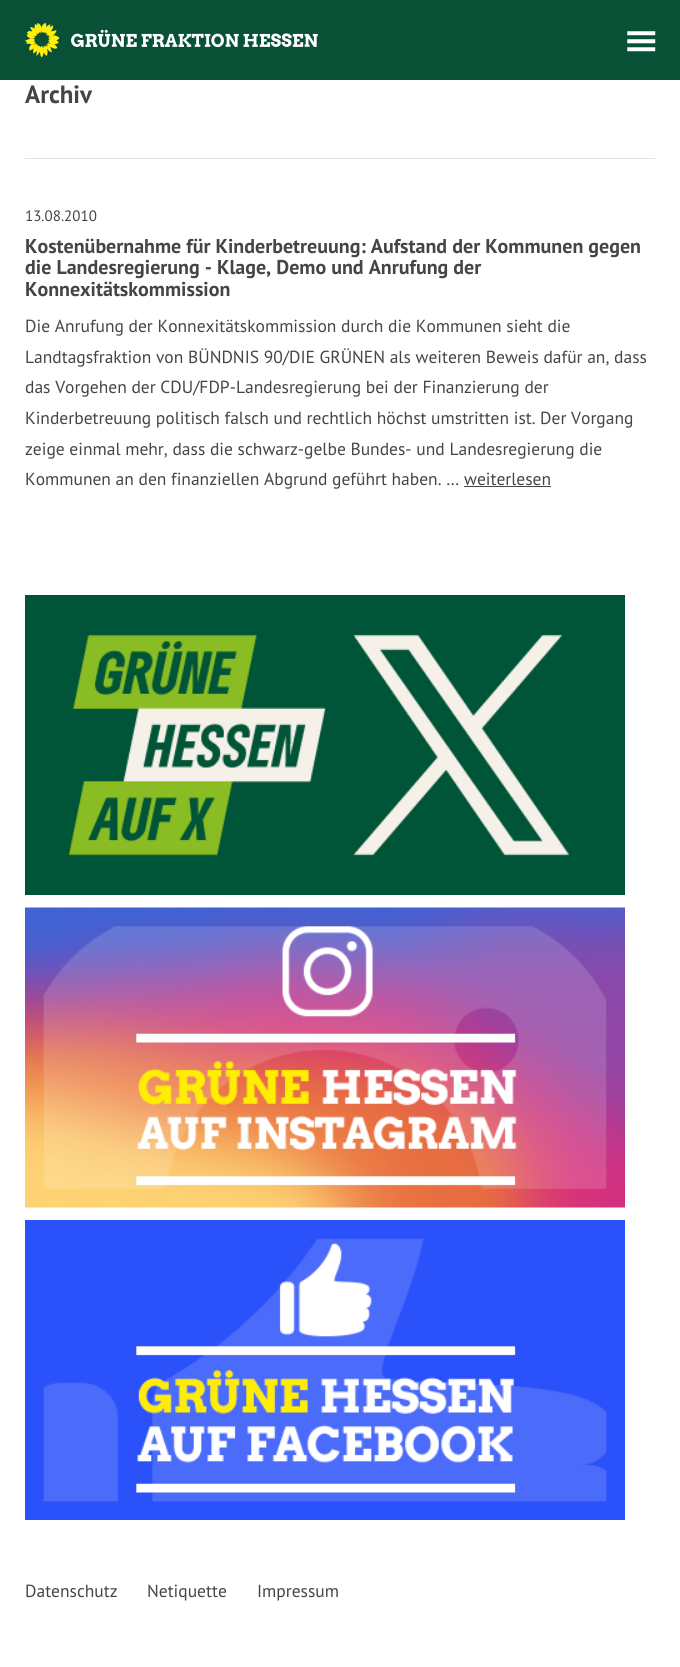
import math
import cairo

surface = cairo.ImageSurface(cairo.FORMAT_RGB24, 680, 1667)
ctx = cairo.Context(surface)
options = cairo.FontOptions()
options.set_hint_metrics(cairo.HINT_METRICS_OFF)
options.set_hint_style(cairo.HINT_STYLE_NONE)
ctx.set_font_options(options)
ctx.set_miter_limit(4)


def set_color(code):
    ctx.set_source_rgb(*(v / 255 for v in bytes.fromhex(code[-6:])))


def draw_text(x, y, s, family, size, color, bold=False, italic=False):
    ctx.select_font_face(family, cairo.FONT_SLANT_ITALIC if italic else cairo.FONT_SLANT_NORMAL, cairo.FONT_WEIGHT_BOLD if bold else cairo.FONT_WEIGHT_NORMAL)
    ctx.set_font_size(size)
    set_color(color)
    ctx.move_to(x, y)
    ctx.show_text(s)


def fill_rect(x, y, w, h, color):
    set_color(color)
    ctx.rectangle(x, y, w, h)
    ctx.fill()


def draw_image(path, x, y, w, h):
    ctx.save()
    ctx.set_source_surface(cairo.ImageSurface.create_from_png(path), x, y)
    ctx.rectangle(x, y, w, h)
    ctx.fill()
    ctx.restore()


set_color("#ffffff")
ctx.paint()
fill_rect(0, 0, 680, 80, "#085136")
draw_image("assets/img1.png", 25, 23, 293, 35)
draw_image("assets/img2.png", 627, 31, 29, 21)
draw_text(25, 103, "Archiv", "PT Sans", 25, "#454545", bold=True)
fill_rect(25, 158, 630, 1, "#e2e2e2")
draw_text(25, 221, "13.08.2010", "PT Sans", 15, "#454545")
draw_text(25, 253, "Kostenübernahme für Kinderbetreuung: Aufstand der Kommunen gegen", "PT Sans", 20, "#454545", bold=True)
draw_text(25, 274, "die Landesregierung - Klage, Demo und Anrufung der", "PT Sans", 20, "#454545", bold=True)
draw_text(25, 296, "Konnexitätskommission", "PT Sans", 20, "#454545", bold=True)
draw_text(25, 332, "Die Anrufung der Konnexitätskommission durch die Kommunen sieht die", "PT Sans", 17.5, "#454545")
draw_text(25, 363, "Landtagsfraktion von BÜNDNIS 90/DIE GRÜNEN als weiteren Beweis dafür an, dass", "PT Sans", 17.5, "#454545")
draw_text(25, 393, "das Vorgehen der CDU/FDP-Landesregierung bei der Finanzierung der", "PT Sans", 17.5, "#454545")
draw_text(25, 424, "Kinderbetreuung politisch falsch und rechtlich höchst umstritten ist. Der Vorgang", "PT Sans", 17.5, "#454545")
draw_text(25, 455, "zeige einmal mehr, dass die schwarz-gelbe Bundes- und Landesregierung die", "PT Sans", 17.5, "#454545")
draw_text(25, 485, "Kommunen an den finanziellen Abgrund geführt haben. … weiterlesen", "PT Sans", 17.5, "#454545")
fill_rect(464, 486, 87, 1, "#454545")
draw_image("assets/img3.png", 25, 595, 600, 300)
draw_image("assets/img4.png", 25, 907, 600, 301)
draw_image("assets/img5.png", 25, 1220, 600, 300)
draw_text(25, 1597, "Datenschutz", "PT Sans", 17.5, "#454545")
draw_text(147, 1597, "Netiquette", "PT Sans", 17.5, "#454545")
draw_text(257, 1597, "Impressum", "PT Sans", 17.5, "#454545")
surface.write_to_png("output.png")
